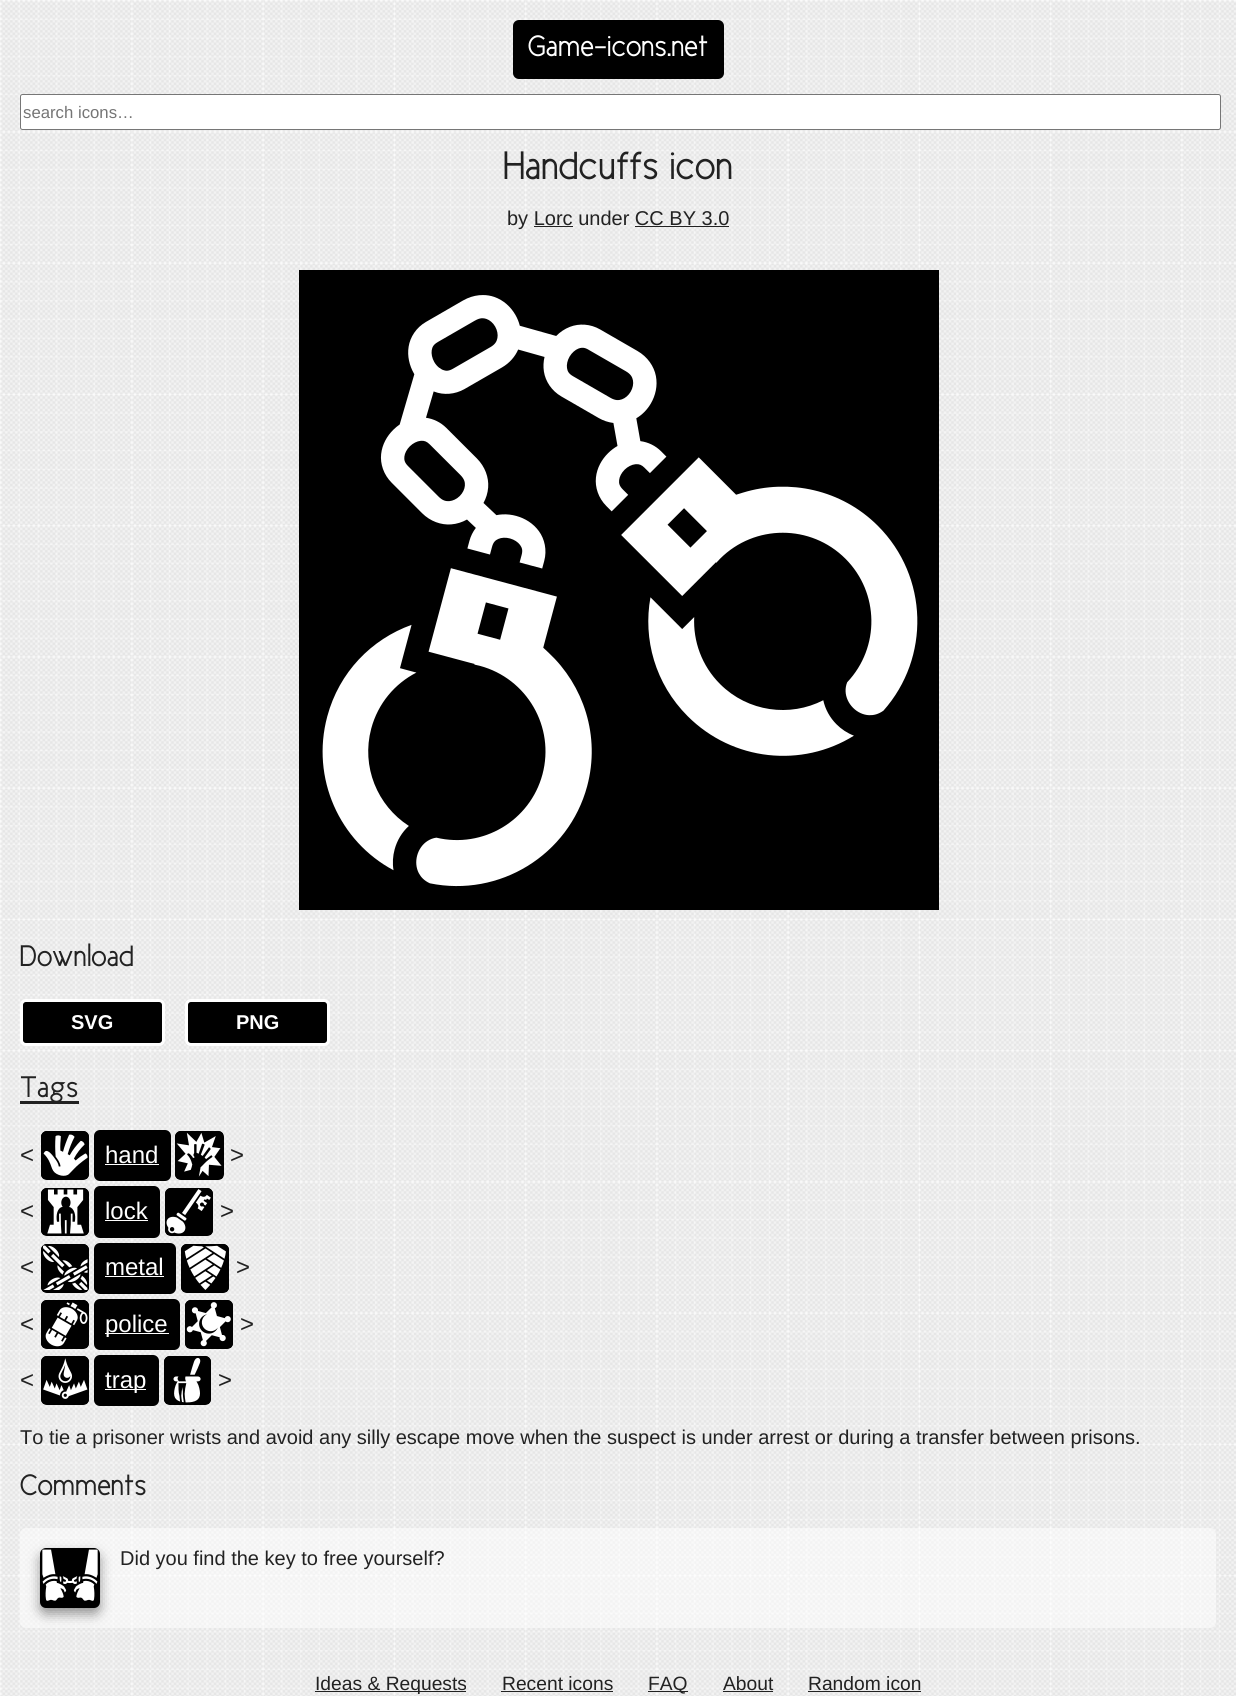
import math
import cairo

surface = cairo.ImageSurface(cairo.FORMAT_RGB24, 1236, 1696)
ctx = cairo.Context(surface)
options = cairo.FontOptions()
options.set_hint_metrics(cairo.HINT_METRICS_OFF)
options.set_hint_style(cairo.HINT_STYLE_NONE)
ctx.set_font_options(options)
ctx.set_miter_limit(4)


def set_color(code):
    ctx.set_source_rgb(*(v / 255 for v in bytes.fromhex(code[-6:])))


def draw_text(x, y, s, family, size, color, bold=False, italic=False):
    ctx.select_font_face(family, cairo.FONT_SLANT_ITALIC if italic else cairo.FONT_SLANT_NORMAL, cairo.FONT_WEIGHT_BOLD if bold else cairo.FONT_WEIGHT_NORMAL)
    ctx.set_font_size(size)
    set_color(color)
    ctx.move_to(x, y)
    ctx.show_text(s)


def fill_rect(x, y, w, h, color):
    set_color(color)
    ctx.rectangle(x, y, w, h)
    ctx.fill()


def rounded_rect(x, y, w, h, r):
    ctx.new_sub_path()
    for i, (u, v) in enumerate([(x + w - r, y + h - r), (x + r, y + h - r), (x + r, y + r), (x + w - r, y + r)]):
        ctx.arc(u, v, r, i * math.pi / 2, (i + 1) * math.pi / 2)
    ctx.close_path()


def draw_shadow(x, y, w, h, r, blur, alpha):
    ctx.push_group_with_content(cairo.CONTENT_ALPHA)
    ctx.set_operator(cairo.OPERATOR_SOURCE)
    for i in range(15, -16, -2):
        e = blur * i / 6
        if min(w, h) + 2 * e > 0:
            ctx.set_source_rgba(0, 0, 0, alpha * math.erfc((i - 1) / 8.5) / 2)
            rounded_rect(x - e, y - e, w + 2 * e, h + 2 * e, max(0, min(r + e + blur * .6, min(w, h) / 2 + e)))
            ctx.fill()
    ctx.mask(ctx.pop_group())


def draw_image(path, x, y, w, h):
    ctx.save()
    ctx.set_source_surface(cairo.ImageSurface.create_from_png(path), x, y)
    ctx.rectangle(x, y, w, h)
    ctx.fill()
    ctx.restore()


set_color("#ffffff")
ctx.paint()
draw_image("assets/img1.png", 0, 0, 1236, 1696)
set_color("#000000")
rounded_rect(513, 20, 211, 59, 6)
ctx.fill()
draw_text(528, 56, "Game-icons.net", "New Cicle", 30, "#ffffff", bold=True)
rounded_rect(20.5, 94.5, 1200, 35, 2)
ctx.fill_preserve()
set_color("#767676")
ctx.set_line_width(1)
ctx.stroke()
draw_text(23, 118, "search icons…", "Liberation Sans", 16.75, "#757575")
draw_text(503, 179, "Handcuffs icon", "New Cicle", 40, "#222222", bold=True)
draw_text(507, 225, "by Lorc under CC BY 3.0", "Liberation Sans", 20, "#222222")
fill_rect(534, 226, 39, 1, "#222222")
fill_rect(635, 226, 94, 1, "#222222")
draw_image("assets/img2.png", 299, 270, 640, 640)
draw_text(20, 966, "Download", "New Cicle", 30, "#222222", bold=True)
set_color("#000000")
rounded_rect(21.5, 1000.5, 142, 44, 4.5)
ctx.fill_preserve()
set_color("#ffffff")
ctx.set_line_width(3)
ctx.stroke()
draw_text(71, 1029, "SVG", "Liberation Sans", 20, "#ffffff", bold=True)
set_color("#000000")
rounded_rect(186.5, 1000.5, 142, 44, 4.5)
ctx.fill_preserve()
set_color("#ffffff")
ctx.stroke()
draw_text(236, 1029, "PNG", "Liberation Sans", 20, "#ffffff", bold=True)
draw_text(20, 1097, "Tags", "New Cicle", 30, "#222222", bold=True)
fill_rect(20, 1101, 59, 3, "#222222")
draw_text(20, 1163, "<", "Liberation Sans", 24, "#222222")
set_color("#000000")
rounded_rect(41, 1131, 48, 49, 6)
ctx.fill()
draw_image("assets/img3.png", 41, 1131, 48, 48)
rounded_rect(94, 1130, 77, 51, 6)
ctx.fill()
draw_text(105, 1163, "hand", "Liberation Sans", 24, "#ffffff")
fill_rect(105, 1164, 54, 1, "#ffffff")
set_color("#000000")
rounded_rect(175, 1131, 49, 49, 6)
ctx.fill()
draw_image("assets/img4.png", 175, 1131, 48, 48)
draw_text(230, 1163, ">", "Liberation Sans", 24, "#222222")
draw_text(20, 1219, "<", "Liberation Sans", 24, "#222222")
set_color("#000000")
rounded_rect(41, 1188, 48, 48, 6)
ctx.fill()
draw_image("assets/img5.png", 41, 1188, 48, 47)
rounded_rect(94, 1186, 66, 52, 6)
ctx.fill()
draw_text(105, 1219, "lock", "Liberation Sans", 24, "#ffffff")
fill_rect(105, 1220, 43, 1, "#ffffff")
set_color("#000000")
rounded_rect(165, 1188, 48, 48, 6)
ctx.fill()
draw_image("assets/img6.png", 165, 1188, 48, 47)
draw_text(220, 1219, ">", "Liberation Sans", 24, "#222222")
draw_text(20, 1275, "<", "Liberation Sans", 24, "#222222")
set_color("#000000")
rounded_rect(41, 1244, 48, 49, 6)
ctx.fill()
draw_image("assets/img7.png", 41, 1244, 48, 48)
rounded_rect(94, 1243, 82, 51, 6)
ctx.fill()
draw_text(105, 1275, "metal", "Liberation Sans", 24, "#ffffff")
fill_rect(105, 1276, 59, 1, "#ffffff")
set_color("#000000")
rounded_rect(181, 1244, 48, 49, 6)
ctx.fill()
draw_image("assets/img8.png", 181, 1244, 48, 48)
draw_text(236, 1275, ">", "Liberation Sans", 24, "#222222")
draw_text(20, 1332, "<", "Liberation Sans", 24, "#222222")
set_color("#000000")
rounded_rect(41, 1300, 48, 49, 6)
ctx.fill()
draw_image("assets/img9.png", 41, 1300, 48, 48)
rounded_rect(94, 1299, 86, 51, 6)
ctx.fill()
fill_rect(105, 1333, 64, 1, "#ffffff")
draw_text(105, 1332, "police", "Liberation Sans", 24, "#ffffff")
set_color("#000000")
rounded_rect(185, 1300, 48, 49, 6)
ctx.fill()
draw_image("assets/img10.png", 185, 1300, 48, 48)
draw_text(240, 1332, ">", "Liberation Sans", 24, "#222222")
draw_text(20, 1388, "<", "Liberation Sans", 24, "#222222")
set_color("#000000")
rounded_rect(41, 1356, 48, 49, 6)
ctx.fill()
draw_image("assets/img11.png", 41, 1356, 48, 48)
rounded_rect(94, 1355, 65, 51, 6)
ctx.fill()
fill_rect(105, 1389, 41, 1, "#ffffff")
draw_text(105, 1388, "trap", "Liberation Sans", 24, "#ffffff")
set_color("#000000")
rounded_rect(164, 1356, 47, 49, 6)
ctx.fill()
draw_image("assets/img12.png", 164, 1356, 47, 48)
draw_text(218, 1388, ">", "Liberation Sans", 24, "#222222")
draw_text(20, 1444, "To tie a prisoner wrists and avoid any silly escape move when the suspect is under arrest or during a transfer between prisons.", "Liberation Sans", 20, "#222222")
draw_text(20, 1495, "Comments", "New Cicle", 30, "#222222", bold=True)
ctx.set_source_rgba(1, 1, 1, 0.5)
rounded_rect(20, 1528, 1196, 100, 6)
ctx.fill()
set_color("#000000")
draw_shadow(40, 1554, 60, 60, 6, 6, 0.4)
draw_image("assets/img13.png", 40, 1548, 60, 60)
draw_text(120, 1565, "Did you find the key to free yourself?", "Liberation Sans", 20, "#222222")
fill_rect(315, 1691, 151, 1, "#222222")
draw_text(315, 1690, "Ideas & Requests", "Liberation Sans", 19.25, "#222222")
draw_text(502, 1690, "Recent icons", "Liberation Sans", 19.25, "#222222")
fill_rect(501, 1691, 112, 1, "#222222")
fill_rect(648, 1691, 40, 1, "#222222")
draw_text(648, 1690, "FAQ", "Liberation Sans", 19.25, "#222222")
draw_text(723, 1690, "About", "Liberation Sans", 19.25, "#222222")
fill_rect(723, 1691, 50, 1, "#222222")
draw_text(808, 1690, "Random icon", "Liberation Sans", 19.25, "#222222")
fill_rect(808, 1691, 113, 1, "#222222")
surface.write_to_png("output.png")
